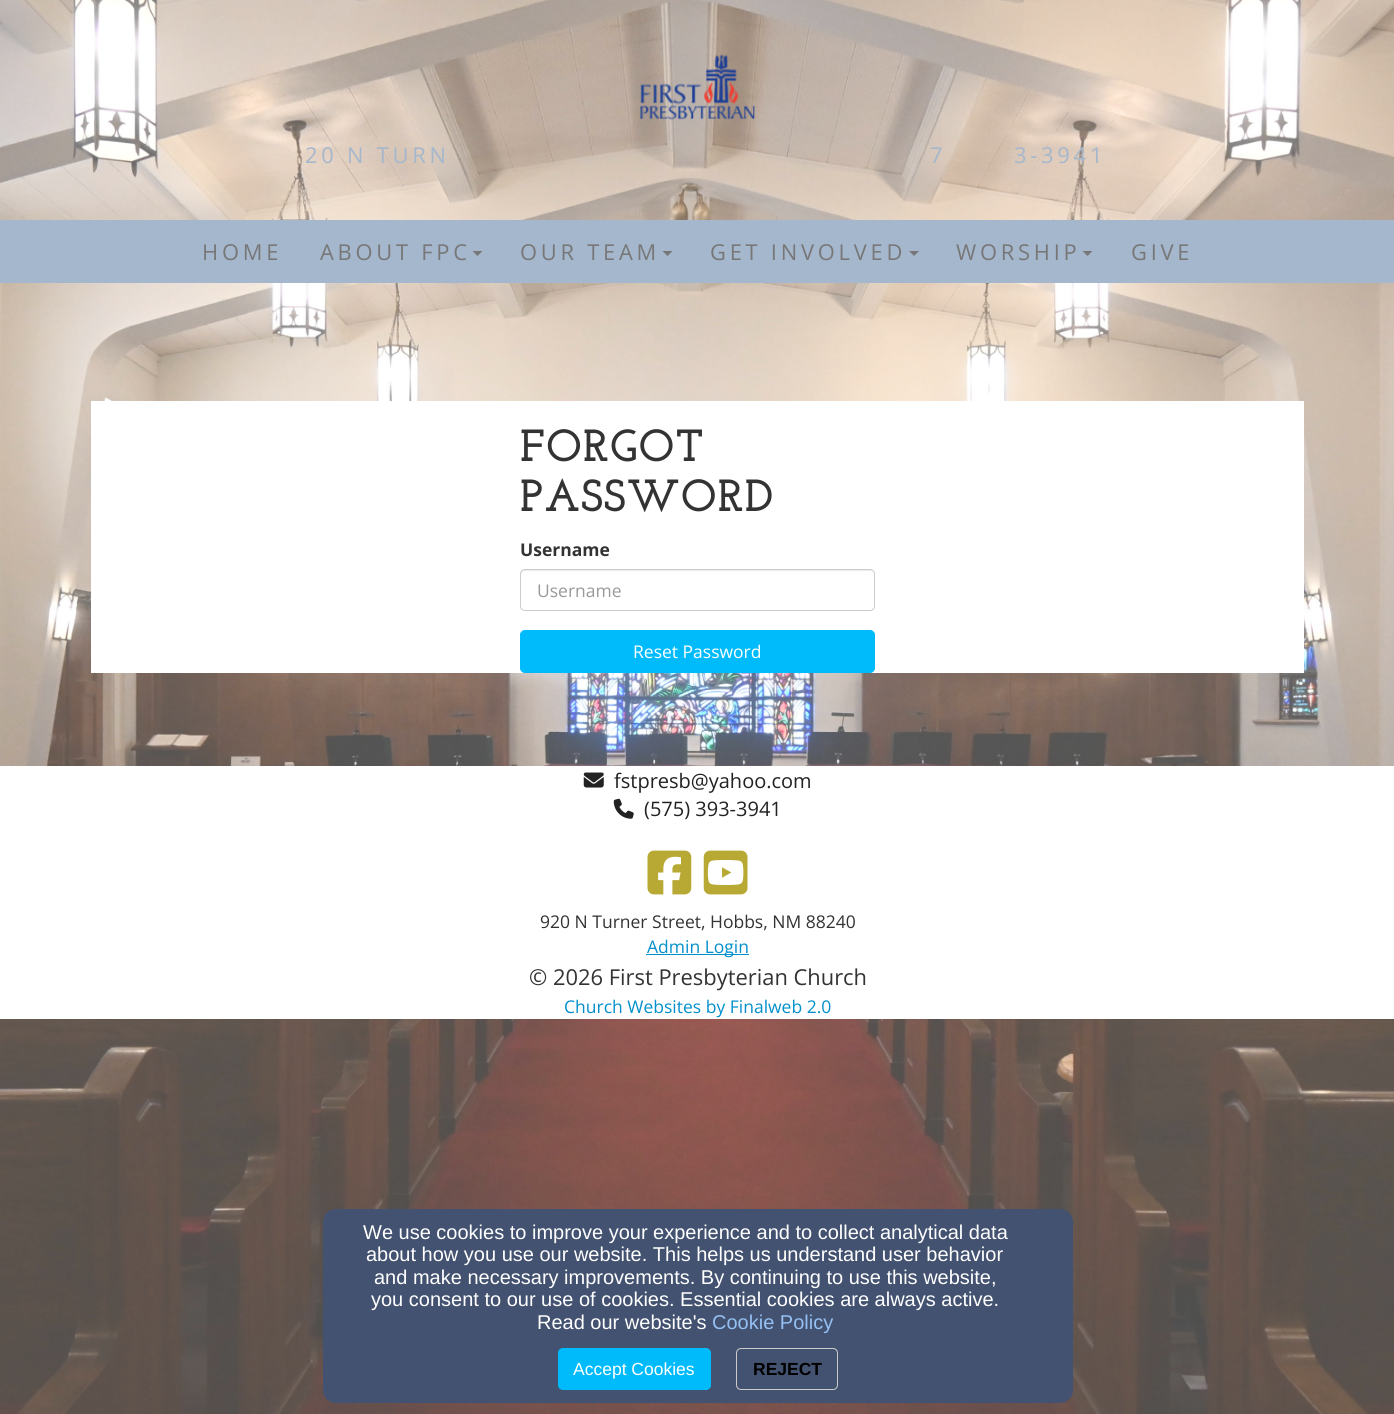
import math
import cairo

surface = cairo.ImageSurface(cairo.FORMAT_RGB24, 1394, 1414)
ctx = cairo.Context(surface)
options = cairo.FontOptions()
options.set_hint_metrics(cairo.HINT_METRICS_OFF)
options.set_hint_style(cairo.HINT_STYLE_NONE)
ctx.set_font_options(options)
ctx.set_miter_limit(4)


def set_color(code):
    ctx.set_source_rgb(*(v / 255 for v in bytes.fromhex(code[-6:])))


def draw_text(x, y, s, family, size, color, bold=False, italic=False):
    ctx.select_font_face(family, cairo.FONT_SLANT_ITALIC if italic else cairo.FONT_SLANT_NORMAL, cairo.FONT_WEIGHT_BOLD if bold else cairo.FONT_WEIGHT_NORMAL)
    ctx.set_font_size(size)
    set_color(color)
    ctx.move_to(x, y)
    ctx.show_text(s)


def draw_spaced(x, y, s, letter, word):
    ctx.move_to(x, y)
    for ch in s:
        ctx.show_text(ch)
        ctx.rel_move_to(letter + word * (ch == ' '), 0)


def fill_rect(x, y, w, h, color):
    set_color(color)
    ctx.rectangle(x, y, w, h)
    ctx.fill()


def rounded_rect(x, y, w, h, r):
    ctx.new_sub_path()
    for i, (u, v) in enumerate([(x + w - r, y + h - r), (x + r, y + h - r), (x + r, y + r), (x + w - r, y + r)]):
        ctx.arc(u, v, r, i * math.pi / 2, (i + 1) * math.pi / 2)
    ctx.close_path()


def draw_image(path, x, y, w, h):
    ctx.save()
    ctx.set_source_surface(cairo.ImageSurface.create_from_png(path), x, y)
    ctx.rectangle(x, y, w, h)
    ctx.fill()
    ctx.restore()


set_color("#ffffff")
ctx.paint()
draw_image("assets/img1.png", 0, 0, 1394, 1414)
draw_image("assets/img2.png", 640, 54, 116, 66)
ctx.select_font_face("Open Sans")
ctx.set_font_size(21.9)
set_color("#a5b7cc")
draw_spaced(305, 163, "20 N TURN", 3.75, 0)
draw_spaced(930, 163, "7", 3.75, 0)
draw_spaced(1014, 163, "3-3941", 3.75, 0)
fill_rect(0, 220, 1394, 63, "#a5b7cc")
set_color("#777777")
draw_spaced(202, 260, "HOME", 3.75, 0)
draw_spaced(320, 260, "ABOUT FPC", 3.75, 0)
ctx.new_path()
ctx.move_to(472.5, 251)
ctx.line_to(482.5, 251)
ctx.line_to(477.5, 256)
ctx.close_path()
ctx.fill()
draw_spaced(520, 260, "OUR TEAM", 3.75, 0)
ctx.new_path()
ctx.move_to(662.5, 251)
ctx.line_to(672.5, 251)
ctx.line_to(667.5, 256)
ctx.close_path()
ctx.fill()
draw_spaced(710, 260, "GET INVOLVED", 3.75, 0)
ctx.new_path()
ctx.move_to(909, 251)
ctx.line_to(919, 251)
ctx.line_to(914, 256)
ctx.close_path()
ctx.fill()
draw_spaced(956, 260, "WORSHIP", 3.75, 0)
ctx.new_path()
ctx.move_to(1082.5, 251)
ctx.line_to(1092.5, 251)
ctx.line_to(1087.5, 256)
ctx.close_path()
ctx.fill()
draw_spaced(1131, 260, "GIVE", 3.75, 0)
fill_rect(91, 401, 1213, 272, "#ffffff")
ctx.select_font_face("Josefin Slab", cairo.FONT_SLANT_NORMAL, cairo.FONT_WEIGHT_BOLD)
ctx.set_font_size(45)
set_color("#333333")
draw_spaced(520, 461, "FORGOT", 1.25, 0)
draw_spaced(520, 511, "PASSWORD", 1.25, 0)
draw_text(520, 556, "Username", "Open Sans", 17.5, "#333333", bold=True)
set_color("#ececec")
ctx.new_path()
ctx.move_to(525, 571)
ctx.line_to(870, 571)
ctx.curve_to(872, 571, 874, 573, 874, 575)
ctx.line_to(873, 572)
ctx.line_to(871, 570)
ctx.line_to(525, 570)
ctx.curve_to(522, 570, 521, 572, 521, 575)
ctx.curve_to(521, 573, 523, 571, 525, 571)
ctx.close_path()
ctx.fill()
rounded_rect(520.5, 569.5, 354, 41, 4.5)
set_color("#cccccc")
ctx.set_line_width(1)
ctx.stroke()
draw_text(537, 597, "Username", "Open Sans", 17.5, "#999999")
set_color("#00bbfc")
rounded_rect(520.5, 630.5, 354, 42, 4.5)
ctx.fill_preserve()
ctx.stroke()
draw_text(633, 658, "Reset Password", "Open Sans", 17.5, "#ffffff")
fill_rect(0, 766, 1394, 253, "#ffffff")
draw_image("assets/img3.png", 583, 772, 21, 16)
draw_text(614, 788, "fstpresb@yahoo.com", "Open Sans", 20, "#222222")
draw_image("assets/img4.png", 613, 798, 21, 21)
draw_text(644, 816, "(575) 393-3941", "Open Sans", 20, "#222222")
draw_image("assets/img5.png", 647, 850, 45, 45)
draw_image("assets/img6.png", 703, 850, 45, 45)
draw_text(540, 928, "920 N Turner Street, Hobbs, NM 88240", "Open Sans", 17.5, "#333333")
fill_rect(646, 954, 103, 1, "#028fcc")
draw_text(647, 953, "Admin Login", "Open Sans", 17.5, "#028fcc")
draw_text(529, 985, "© 2026 First Presbyterian Church", "Open Sans", 21.9, "#333333")
draw_text(564, 1013, "Church Websites by Finalweb 2.0", "Open Sans", 17.5, "#028fcc")
set_color("#435270")
rounded_rect(323, 1209, 750, 194, 13)
ctx.fill()
draw_text(363, 1239, "We use cookies to improve your experience and to collect analytical data", "Liberation Sans", 20, "#ffffff")
draw_text(366, 1261, "about how you use our website. This helps us understand user behavior", "Liberation Sans", 20, "#ffffff")
draw_text(374, 1284, "and make necessary improvements. By continuing to use this website,", "Liberation Sans", 20, "#ffffff")
draw_text(371, 1306, "you consent to our use of cookies. Essential cookies are always active.", "Liberation Sans", 20, "#ffffff")
draw_text(537, 1329, "Read our website's", "Liberation Sans", 20, "#ffffff")
draw_text(712, 1329, "Cookie Policy", "Liberation Sans", 20, "#94c0f3")
set_color("#00bbfc")
rounded_rect(558.5, 1348.5, 152, 41, 4.5)
ctx.fill_preserve()
ctx.stroke()
draw_text(573, 1375, "Accept Cookies", "Liberation Sans", 17.5, "#ffffff")
rounded_rect(736.5, 1348.5, 101, 41, 4.5)
set_color("#cccccc")
ctx.stroke()
draw_text(753, 1375, "REJECT", "Liberation Sans", 17.5, "#000000", bold=True)
surface.write_to_png("output.png")
